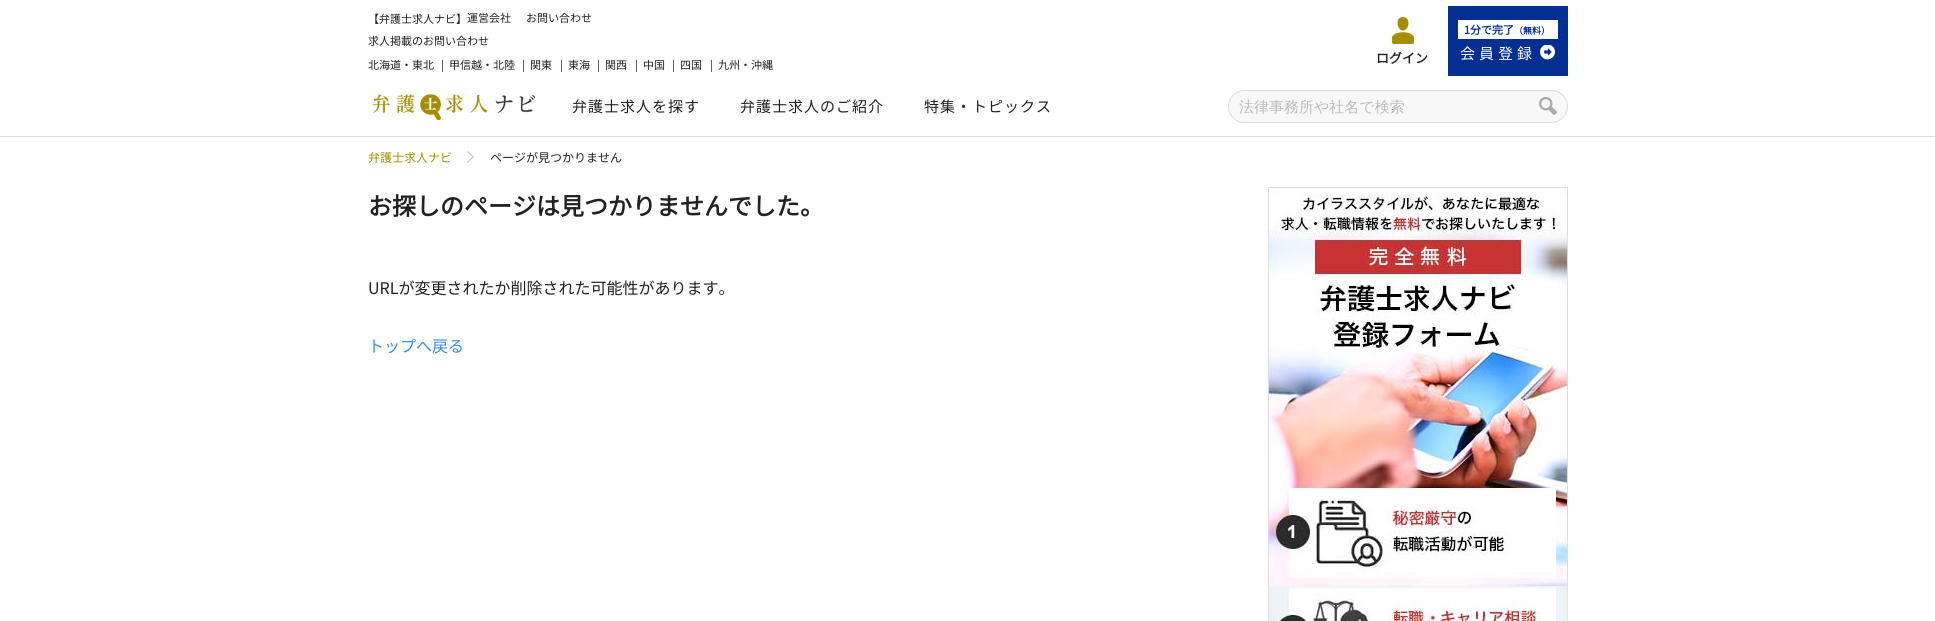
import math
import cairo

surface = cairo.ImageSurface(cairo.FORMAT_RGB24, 1935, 621)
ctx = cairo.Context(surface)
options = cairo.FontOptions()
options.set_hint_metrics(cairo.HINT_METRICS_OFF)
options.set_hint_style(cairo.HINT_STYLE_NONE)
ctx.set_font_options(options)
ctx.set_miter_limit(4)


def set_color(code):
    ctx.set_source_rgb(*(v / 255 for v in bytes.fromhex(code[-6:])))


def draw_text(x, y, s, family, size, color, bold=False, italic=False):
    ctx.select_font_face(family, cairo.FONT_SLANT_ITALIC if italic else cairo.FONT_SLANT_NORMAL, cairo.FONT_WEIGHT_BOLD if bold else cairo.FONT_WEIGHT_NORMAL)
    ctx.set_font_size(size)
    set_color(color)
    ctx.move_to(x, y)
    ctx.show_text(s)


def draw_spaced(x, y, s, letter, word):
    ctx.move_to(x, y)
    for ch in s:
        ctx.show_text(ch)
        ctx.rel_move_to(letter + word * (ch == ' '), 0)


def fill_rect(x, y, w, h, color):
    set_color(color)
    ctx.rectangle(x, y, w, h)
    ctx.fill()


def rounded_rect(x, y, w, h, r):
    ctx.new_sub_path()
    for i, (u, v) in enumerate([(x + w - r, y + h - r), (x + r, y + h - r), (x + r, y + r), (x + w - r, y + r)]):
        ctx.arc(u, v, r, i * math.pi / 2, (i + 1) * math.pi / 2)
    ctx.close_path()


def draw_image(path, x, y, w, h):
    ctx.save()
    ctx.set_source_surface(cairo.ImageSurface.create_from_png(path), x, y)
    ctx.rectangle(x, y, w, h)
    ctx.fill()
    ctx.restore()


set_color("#ffffff")
ctx.paint()
draw_text(368, 23, "【弁護士求人ナビ】", "Noto Sans JP Thin", 11, "#222222")
draw_text(467, 22, "運営会社", "Noto Sans JP Thin", 11, "#222222")
draw_text(526, 22, "お問い合わせ", "Noto Sans JP Thin", 11, "#222222")
draw_text(368, 45, "求人掲載のお問い合わせ", "Noto Sans JP Thin", 11, "#222222")
draw_text(368, 69, "北海道・東北", "Noto Sans JP Thin", 11, "#222222")
draw_text(441, 69, "|", "Noto Sans JP Thin", 11, "#222222")
draw_text(449, 69, "甲信越・北陸", "Noto Sans JP Thin", 11, "#222222")
draw_text(522, 69, "|", "Noto Sans JP Thin", 11, "#222222")
draw_text(530, 69, "関東", "Noto Sans JP Thin", 11, "#222222")
draw_text(560, 69, "|", "Noto Sans JP Thin", 11, "#222222")
draw_text(568, 69, "東海", "Noto Sans JP Thin", 11, "#222222")
draw_text(597, 69, "|", "Noto Sans JP Thin", 11, "#222222")
draw_text(605, 69, "関西", "Noto Sans JP Thin", 11, "#222222")
draw_text(635, 69, "|", "Noto Sans JP Thin", 11, "#222222")
draw_text(643, 69, "中国", "Noto Sans JP Thin", 11, "#222222")
draw_text(672, 69, "|", "Noto Sans JP Thin", 11, "#222222")
draw_text(680, 69, "四国", "Noto Sans JP Thin", 11, "#222222")
draw_text(710, 69, "|", "Noto Sans JP Thin", 11, "#222222")
draw_text(718, 69, "九州・沖縄", "Noto Sans JP Thin", 11, "#222222")
draw_image("assets/img1.png", 1392, 17, 22, 27)
draw_text(1376, 63, "ログイン", "Noto Sans JP", 13, "#222222", bold=True)
fill_rect(1448, 6, 120, 70, "#042f92")
fill_rect(1458, 20, 100, 19, "#ffffff")
draw_text(1464, 34, "1分で完了", "Noto Sans JP", 11, "#042f92", bold=True)
draw_text(1514, 34, "（無料）", "Noto Sans JP", 9, "#042f92", bold=True)
ctx.select_font_face("Noto Sans JP Thin")
ctx.set_font_size(15)
set_color("#ffffff")
draw_spaced(1460, 59, "会員登録", 4, 0)
draw_image("assets/img2.png", 1540, 45, 15, 15)
draw_image("assets/img3.png", 372, 94, 163, 26)
set_color("#222222")
draw_spaced(572, 112, "弁護士求人を探す", 1, 0)
draw_spaced(740, 112, "弁護士求人のご紹介", 1, 0)
draw_spaced(924, 112, "特集・トピックス", 1, 0)
set_color("#f8f8f8")
rounded_rect(1228.5, 90.5, 339, 32, 16)
ctx.fill_preserve()
set_color("#dddddd")
ctx.set_line_width(1)
ctx.stroke()
draw_text(1239, 112, "法律事務所や社名で検索", "WenQuanYi Zen Hei Medium", 15, "#bbbbbb")
draw_image("assets/img4.png", 1539, 97, 18, 18)
fill_rect(0, 136, 1935, 1, "#dddddd")
draw_text(368, 162, "弁護士求人ナビ", "Noto Sans JP Thin", 12, "#a68d00")
draw_image("assets/img5.png", 467, 151, 7, 12)
draw_text(490, 162, "ページが見つかりません", "Noto Sans JP Thin", 12, "#222222")
draw_text(368, 215, "お探しのページは見つかりませんでした。", "Noto Sans JP", 24, "#222222", bold=True)
draw_text(368, 294, "URLが変更されたか削除された可能性があります。", "Noto Sans JP Thin", 16, "#222222")
draw_text(368, 352, "トップへ戻る", "Noto Sans JP Thin", 16, "#358ce5")
draw_image("assets/img6.png", 1268, 187, 300, 434)
surface.write_to_png("output.png")
